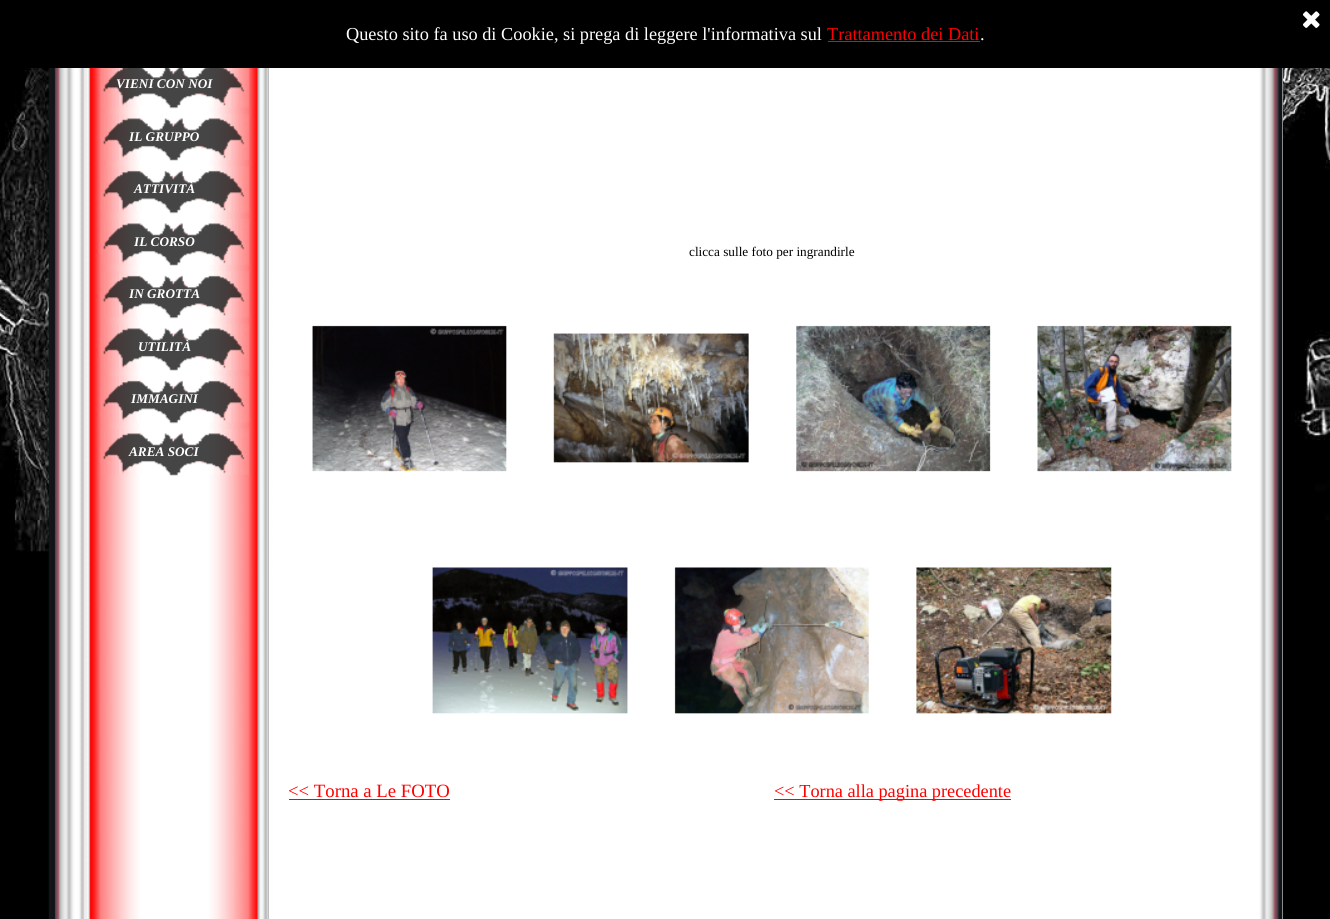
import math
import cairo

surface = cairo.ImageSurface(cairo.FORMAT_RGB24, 1330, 919)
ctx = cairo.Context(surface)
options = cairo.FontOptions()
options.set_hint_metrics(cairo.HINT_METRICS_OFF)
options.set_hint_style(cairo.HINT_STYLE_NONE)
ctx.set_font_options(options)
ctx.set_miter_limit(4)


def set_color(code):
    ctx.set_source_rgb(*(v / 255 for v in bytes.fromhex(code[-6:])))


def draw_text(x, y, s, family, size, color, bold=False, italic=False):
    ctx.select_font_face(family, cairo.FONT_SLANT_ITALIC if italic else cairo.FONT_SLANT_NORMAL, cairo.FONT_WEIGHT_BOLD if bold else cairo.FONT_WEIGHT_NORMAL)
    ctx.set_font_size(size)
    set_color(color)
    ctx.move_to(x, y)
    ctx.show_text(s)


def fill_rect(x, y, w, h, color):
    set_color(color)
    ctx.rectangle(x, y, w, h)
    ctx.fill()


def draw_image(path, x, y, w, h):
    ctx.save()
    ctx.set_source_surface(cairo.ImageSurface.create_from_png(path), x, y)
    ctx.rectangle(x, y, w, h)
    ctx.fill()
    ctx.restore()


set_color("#000000")
ctx.paint()
draw_image("assets/img1.png", 1303, 11, 17, 17)
draw_text(346, 40, "Questo sito fa uso di Cookie, si prega di leggere l'informativa sul", "Liberation Serif", 18.3, "#ffffff")
draw_text(827, 40, "Trattamento dei Dati", "Liberation Serif", 18.3, "#ff0000")
fill_rect(828, 41, 152, 1, "#ff0000")
draw_text(980, 40, ".", "Liberation Serif", 18.3, "#ffffff")
draw_image("assets/img2.png", 0, 68, 1330, 484)
fill_rect(1282, 68, 1, 851, "#ffffff")
draw_image("assets/img12.png", 268, 68, 1015, 851)
draw_image("assets/img3.png", 48, 68, 221, 851)
draw_image("assets/img4.png", 101, 68, 148, 41)
draw_text(116, 88, "VIENI CON NOI", "Liberation Serif", 13.25, "#ffffff", bold=True, italic=True)
draw_image("assets/img5.png", 101, 114, 148, 47)
draw_text(129, 141, "IL GRUPPO", "Liberation Serif", 13.25, "#ffffff", bold=True, italic=True)
draw_image("assets/img6.png", 101, 166, 148, 48)
draw_text(134, 193, "ATTIVITÀ", "Liberation Serif", 13.25, "#ffffff", bold=True, italic=True)
draw_image("assets/img7.png", 101, 219, 148, 47)
draw_text(134, 246, "IL CORSO", "Liberation Serif", 13.25, "#ffffff", bold=True, italic=True)
draw_image("assets/img8.png", 101, 271, 148, 48)
draw_text(129, 298, "IN GROTTA", "Liberation Serif", 13.25, "#ffffff", bold=True, italic=True)
draw_image("assets/img9.png", 101, 324, 148, 47)
draw_text(138, 351, "UTILITÀ", "Liberation Serif", 13.25, "#ffffff", bold=True, italic=True)
draw_image("assets/img10.png", 101, 376, 148, 48)
draw_text(131, 403, "IMMAGINI", "Liberation Serif", 13.25, "#ffffff", bold=True, italic=True)
draw_image("assets/img11.png", 101, 429, 148, 47)
draw_text(129, 456, "AREA SOCI", "Liberation Serif", 13.25, "#ffffff", bold=True, italic=True)
draw_text(689, 256, "clicca sulle foto per ingrandirle", "Liberation Serif", 13.25, "#000000")
draw_image("assets/img13.png", 312, 325, 195, 147)
draw_image("assets/img14.png", 553, 333, 196, 130)
draw_image("assets/img15.png", 796, 325, 195, 147)
draw_image("assets/img16.png", 1037, 325, 195, 147)
draw_image("assets/img17.png", 432, 567, 196, 147)
draw_image("assets/img18.png", 674, 567, 195, 147)
draw_image("assets/img19.png", 916, 567, 196, 147)
draw_text(288, 797, "<< Torna a Le FOTO", "Liberation Serif", 18.75, "#ff0000")
fill_rect(289, 799, 161, 1, "#ff0000")
fill_rect(774, 799, 237, 1, "#ff0000")
draw_text(774, 797, "<< Torna alla pagina precedente", "Liberation Serif", 18.3, "#ff0000")
surface.write_to_png("output.png")
